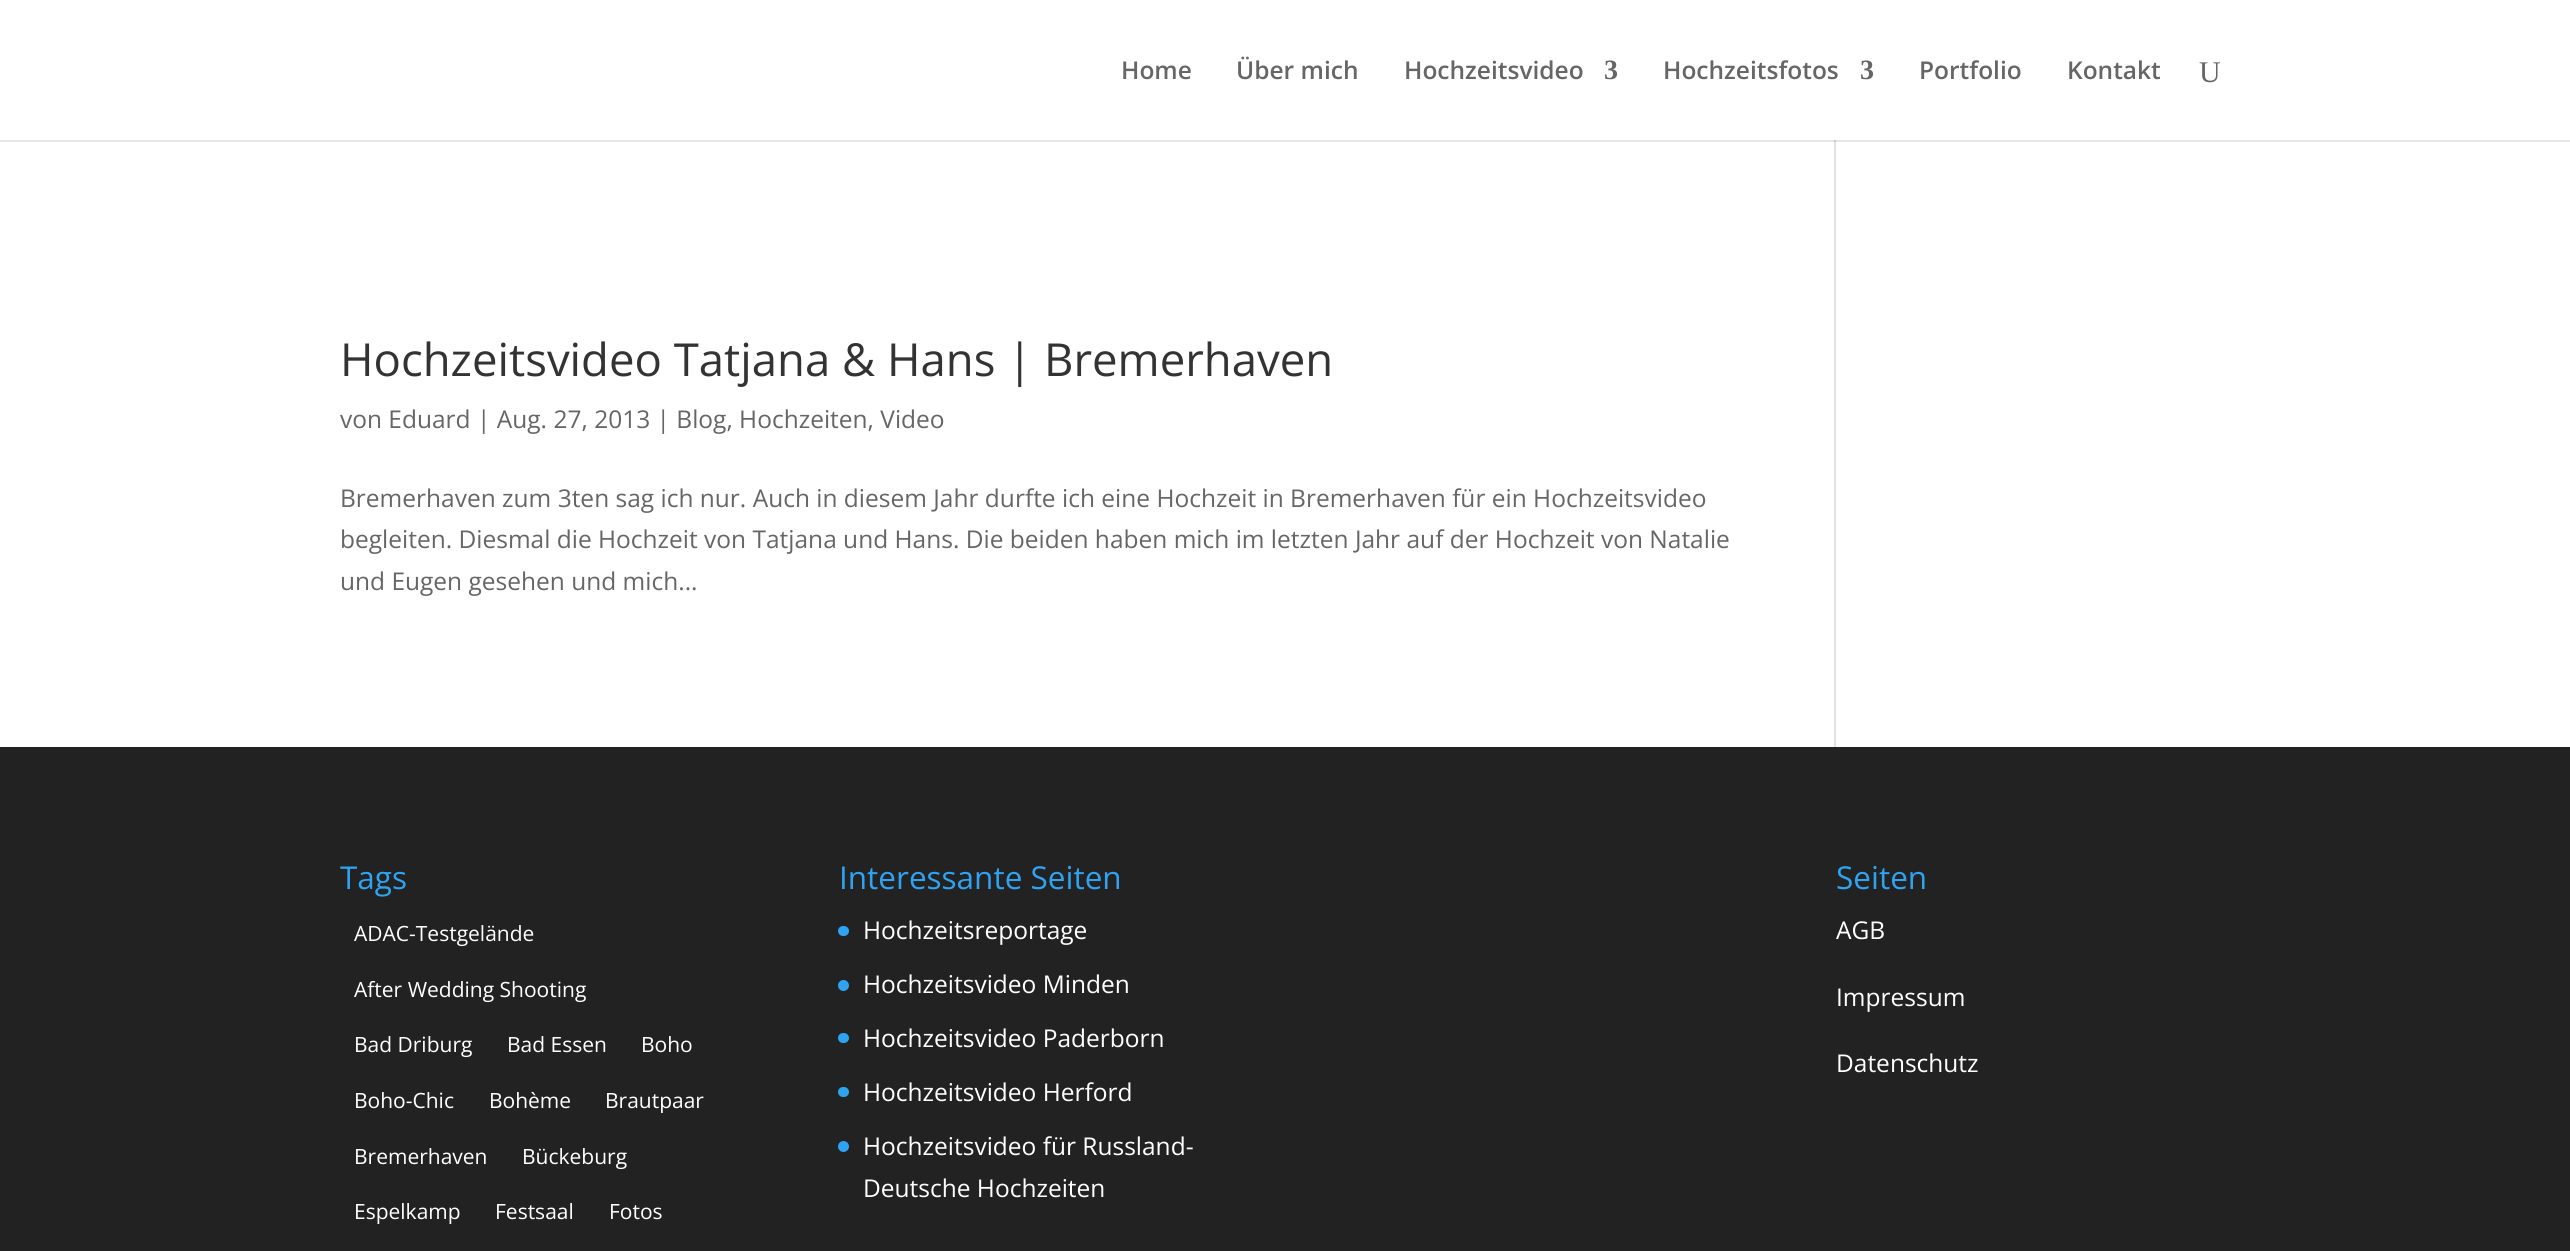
import math
import cairo

surface = cairo.ImageSurface(cairo.FORMAT_RGB24, 2570, 1251)
ctx = cairo.Context(surface)
options = cairo.FontOptions()
options.set_hint_metrics(cairo.HINT_METRICS_OFF)
options.set_hint_style(cairo.HINT_STYLE_NONE)
ctx.set_font_options(options)
ctx.set_miter_limit(4)


def set_color(code):
    ctx.set_source_rgb(*(v / 255 for v in bytes.fromhex(code[-6:])))


def draw_text(x, y, s, family, size, color, bold=False, italic=False):
    ctx.select_font_face(family, cairo.FONT_SLANT_ITALIC if italic else cairo.FONT_SLANT_NORMAL, cairo.FONT_WEIGHT_BOLD if bold else cairo.FONT_WEIGHT_NORMAL)
    ctx.set_font_size(size)
    set_color(color)
    ctx.move_to(x, y)
    ctx.show_text(s)


def fill_rect(x, y, w, h, color):
    set_color(color)
    ctx.rectangle(x, y, w, h)
    ctx.fill()


def rounded_rect(x, y, w, h, r):
    ctx.new_sub_path()
    for i, (u, v) in enumerate([(x + w - r, y + h - r), (x + r, y + h - r), (x + r, y + r), (x + w - r, y + r)]):
        ctx.arc(u, v, r, i * math.pi / 2, (i + 1) * math.pi / 2)
    ctx.close_path()


set_color("#ffffff")
ctx.paint()
fill_rect(1834, 140, 2, 607, "#e2e2e2")
ctx.set_source_rgba(0, 0, 0, 0.1)
ctx.new_path()
ctx.move_to(0, 140)
ctx.line_to(0, 142)
ctx.line_to(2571, 142)
ctx.line_to(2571, 2)
ctx.line_to(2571, 140)
ctx.close_path()
ctx.fill()
draw_text(1121, 79, "Home", "Open Sans SemiBold", 24.5, "#666666")
draw_text(1236, 79, "Über mich", "Open Sans SemiBold", 24.5, "#666666")
draw_text(1404, 79, "Hochzeitsvideo", "Open Sans SemiBold", 24.5, "#666666")
draw_text(1604, 79, "3", "Liberation Serif", 28, "#666666", bold=True)
draw_text(1663, 79, "Hochzeitsfotos", "Open Sans SemiBold", 24.5, "#666666")
draw_text(1860, 79, "3", "Liberation Serif", 28, "#666666", bold=True)
draw_text(1919, 79, "Portfolio", "Open Sans SemiBold", 24.5, "#666666")
draw_text(2067, 79, "Kontakt", "Open Sans SemiBold", 24.5, "#666666")
draw_text(2199, 82, "U", "Liberation Serif", 30, "#666666")
draw_text(340, 376, "Hochzeitsvideo Tatjana & Hans | Bremerhaven", "Open Sans", 45.5, "#333333")
draw_text(340, 428, "von Eduard | Aug. 27, 2013 | Blog, Hochzeiten, Video", "Open Sans", 24.5, "#666666")
draw_text(340, 507, "Bremerhaven zum 3ten sag ich nur. Auch in diesem Jahr durfte ich eine Hochzeit in Bremerhaven für ein Hochzeitsvideo", "Open Sans", 24.5, "#666666")
draw_text(340, 548, "begleiten. Diesmal die Hochzeit von Tatjana und Hans. Die beiden haben mich im letzten Jahr auf der Hochzeit von Natalie", "Open Sans", 24.5, "#666666")
draw_text(340, 590, "und Eugen gesehen und mich...", "Open Sans", 24.5, "#666666")
fill_rect(0, 747, 2570, 504, "#222222")
draw_text(340, 889, "Tags", "Open Sans", 31.5, "#2ea3f2")
draw_text(354, 941, "ADAC-Testgelände", "Open Sans", 21, "#ffffff")
draw_text(354, 997, "After Wedding Shooting", "Open Sans", 21, "#ffffff")
draw_text(354, 1052, "Bad Driburg", "Open Sans", 21, "#ffffff")
draw_text(507, 1052, "Bad Essen", "Open Sans", 21, "#ffffff")
draw_text(641, 1052, "Boho", "Open Sans", 21, "#ffffff")
draw_text(354, 1108, "Boho-Chic", "Open Sans", 21, "#ffffff")
draw_text(489, 1108, "Bohème", "Open Sans", 21, "#ffffff")
draw_text(605, 1108, "Brautpaar", "Open Sans", 21, "#ffffff")
draw_text(354, 1164, "Bremerhaven", "Open Sans", 21, "#ffffff")
draw_text(522, 1164, "Bückeburg", "Open Sans", 21, "#ffffff")
draw_text(354, 1219, "Espelkamp", "Open Sans", 21, "#ffffff")
draw_text(495, 1219, "Festsaal", "Open Sans", 21, "#ffffff")
draw_text(609, 1219, "Fotos", "Open Sans", 21, "#ffffff")
draw_text(839, 889, "Interessante Seiten", "Open Sans", 31.5, "#2ea3f2")
rounded_rect(838, 926, 11, 10, 5)
ctx.fill()
draw_text(863, 939, "Hochzeitsreportage", "Open Sans", 24.5, "#ffffff")
set_color("#2ea3f2")
ctx.new_path()
ctx.arc(843.5, 985.5, 5.5, 0, 2 * math.pi)
ctx.fill()
draw_text(863, 993, "Hochzeitsvideo Minden", "Open Sans", 24.5, "#ffffff")
set_color("#2ea3f2")
rounded_rect(838, 1033, 11, 10, 5)
ctx.fill()
draw_text(863, 1047, "Hochzeitsvideo Paderborn", "Open Sans", 24.5, "#ffffff")
set_color("#2ea3f2")
rounded_rect(838, 1087, 11, 10, 5)
ctx.fill()
draw_text(863, 1101, "Hochzeitsvideo Herford", "Open Sans", 24.5, "#ffffff")
set_color("#2ea3f2")
ctx.new_path()
ctx.arc(843.5, 1146.5, 5.5, 0, 2 * math.pi)
ctx.fill()
draw_text(863, 1155, "Hochzeitsvideo für Russland-", "Open Sans", 24.5, "#ffffff")
draw_text(863, 1197, "Deutsche Hochzeiten", "Open Sans", 24.5, "#ffffff")
draw_text(1836, 889, "Seiten", "Open Sans", 31.5, "#2ea3f2")
draw_text(1836, 939, "AGB", "Open Sans", 24.5, "#ffffff")
draw_text(1836, 1006, "Impressum", "Open Sans", 24.5, "#ffffff")
draw_text(1836, 1072, "Datenschutz", "Open Sans", 24.5, "#ffffff")
surface.write_to_png("output.png")
